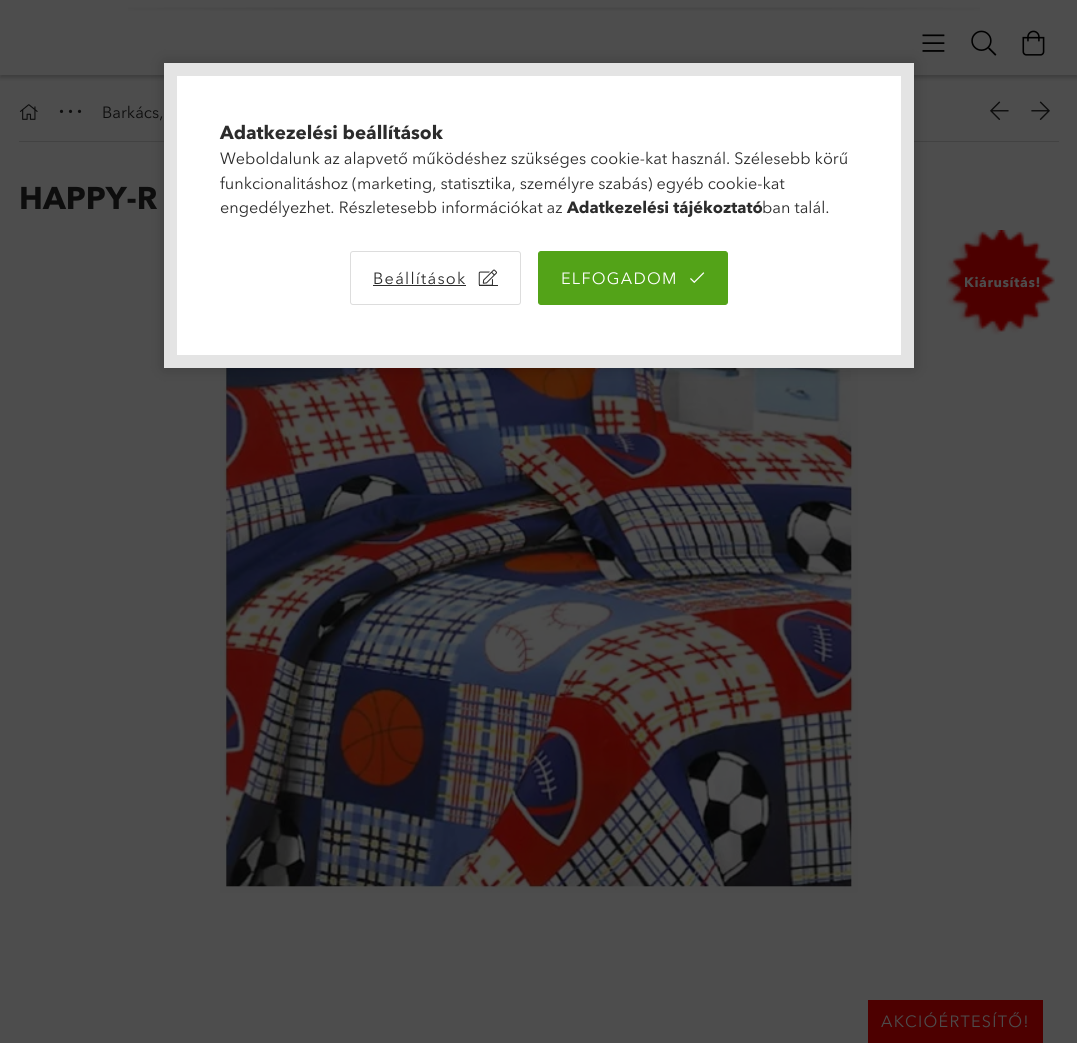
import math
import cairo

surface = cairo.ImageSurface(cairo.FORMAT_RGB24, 1077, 1043)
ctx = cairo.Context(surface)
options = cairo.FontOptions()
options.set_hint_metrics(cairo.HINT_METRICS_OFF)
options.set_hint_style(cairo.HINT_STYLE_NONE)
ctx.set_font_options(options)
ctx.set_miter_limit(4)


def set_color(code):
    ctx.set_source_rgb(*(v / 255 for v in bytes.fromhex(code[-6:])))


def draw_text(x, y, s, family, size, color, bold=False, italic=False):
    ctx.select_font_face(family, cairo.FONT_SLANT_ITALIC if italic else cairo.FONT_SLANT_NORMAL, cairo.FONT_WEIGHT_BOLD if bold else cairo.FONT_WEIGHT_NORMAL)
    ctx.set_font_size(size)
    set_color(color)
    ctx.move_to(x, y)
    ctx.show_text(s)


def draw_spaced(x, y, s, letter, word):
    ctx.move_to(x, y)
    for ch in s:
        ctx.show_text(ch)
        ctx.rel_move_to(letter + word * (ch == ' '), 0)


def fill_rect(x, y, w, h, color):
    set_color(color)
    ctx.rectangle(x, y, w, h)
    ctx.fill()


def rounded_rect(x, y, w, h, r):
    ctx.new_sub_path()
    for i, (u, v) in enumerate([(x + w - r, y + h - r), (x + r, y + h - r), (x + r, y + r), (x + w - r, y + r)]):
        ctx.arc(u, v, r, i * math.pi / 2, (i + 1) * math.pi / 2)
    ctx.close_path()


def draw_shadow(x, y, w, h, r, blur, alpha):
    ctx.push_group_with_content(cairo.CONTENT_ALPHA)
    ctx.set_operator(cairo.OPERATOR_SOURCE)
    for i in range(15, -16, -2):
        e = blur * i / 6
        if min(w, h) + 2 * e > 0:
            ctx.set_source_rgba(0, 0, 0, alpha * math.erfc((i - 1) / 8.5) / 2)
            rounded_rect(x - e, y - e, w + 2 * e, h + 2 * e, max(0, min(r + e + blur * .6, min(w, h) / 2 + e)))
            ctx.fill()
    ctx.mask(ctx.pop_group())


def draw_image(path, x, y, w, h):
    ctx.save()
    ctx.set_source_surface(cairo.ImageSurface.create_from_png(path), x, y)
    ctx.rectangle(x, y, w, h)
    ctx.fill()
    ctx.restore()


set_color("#4d4d4d")
ctx.paint()
ctx.save()
ctx.rectangle(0, 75, 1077, 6)
ctx.clip()
set_color("#000000")
draw_shadow(0, 3, 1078, 75, 0, 2, 0.2)
ctx.restore()
draw_image("assets/img1.png", 128, 7, 852, 4)
draw_image("assets/img2.png", 922, 34, 23, 18)
draw_image("assets/img3.png", 971, 30, 26, 26)
draw_image("assets/img4.png", 1022, 30, 23, 26)
draw_image("assets/img5.png", 19, 104, 19, 16)
ctx.select_font_face("Liberation Serif", cairo.FONT_SLANT_NORMAL, cairo.FONT_WEIGHT_BOLD)
ctx.set_font_size(20)
set_color("#0d0d0d")
draw_spaced(59, 118, "∙∙∙", 4, 0)
draw_text(102, 118, "Barkács,", "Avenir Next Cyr", 16.25, "#0d0d0d")
draw_image("assets/img6.png", 990, 101, 19, 19)
draw_image("assets/img7.png", 1031, 101, 19, 19)
fill_rect(19, 141, 1040, 1, "#424242")
draw_text(19, 209, "HAPPY-R", "Avenir Next Cyr", 31.25, "#0d0d0d", bold=True)
draw_image("assets/img8.png", 946, 230, 109, 105)
ctx.set_font_size(13.75)
set_color("#4d4d4d")
draw_spaced(964, 287, "Kiárusítás!", 0.6, 0)
draw_image("assets/img9.png", 220, 368, 638, 525)
set_color("#000000")
draw_shadow(164, 63, 750, 305, 0, 7.5, 0.2)
set_color("#ffffff")
ctx.rectangle(170.5, 69.5, 737, 292)
ctx.fill_preserve()
set_color("#e4e4e4")
ctx.set_line_width(13)
ctx.stroke()
draw_text(220, 139, "Adatkezelési beállítások", "Avenir Next Cyr", 18.75, "#2c2c2c", bold=True)
draw_text(220, 164, "Weboldalunk az alapvető működéshez szükséges cookie-kat használ. Szélesebb körű", "Avenir Next Cyr", 16.25, "#2c2c2c")
draw_text(220, 189, "funkcionalitáshoz (marketing, statisztika, személyre szabás) egyéb cookie-kat", "Avenir Next Cyr", 16.25, "#2c2c2c")
draw_text(220, 213, "engedélyezhet. Részletesebb információkat az", "Avenir Next Cyr", 16.25, "#2c2c2c")
draw_text(567, 213, "Adatkezelési tájékoztató", "Avenir Next Cyr", 16.25, "#2c2c2c", bold=True)
draw_text(762, 213, "ban talál.", "Avenir Next Cyr", 16.25, "#2c2c2c")
rounded_rect(350.5, 251.5, 170, 53, 2.5)
set_color("#dddddd")
ctx.set_line_width(1)
ctx.stroke()
set_color("#2c2c2c")
draw_spaced(373, 284, "Beállítások", 1.25, 0)
fill_rect(373, 285, 93, 1, "#2c2c2c")
draw_image("assets/img10.png", 478, 269, 19, 16)
fill_rect(479, 285, 19, 1, "#2c2c2c")
set_color("#53a318")
rounded_rect(538.5, 251.5, 189, 53, 2.5)
ctx.fill_preserve()
ctx.stroke()
set_color("#ffffff")
draw_spaced(561, 284, "ELFOGADOM", 1.25, 0)
draw_image("assets/img11.png", 690, 272, 15, 11)
fill_rect(868, 1000, 175, 43, "#4d0000")
set_color("#4d4d4d")
draw_spaced(881, 1027, "AKCIÓÉRTESÍTŐ!", 1.25, 0)
surface.write_to_png("output.png")
